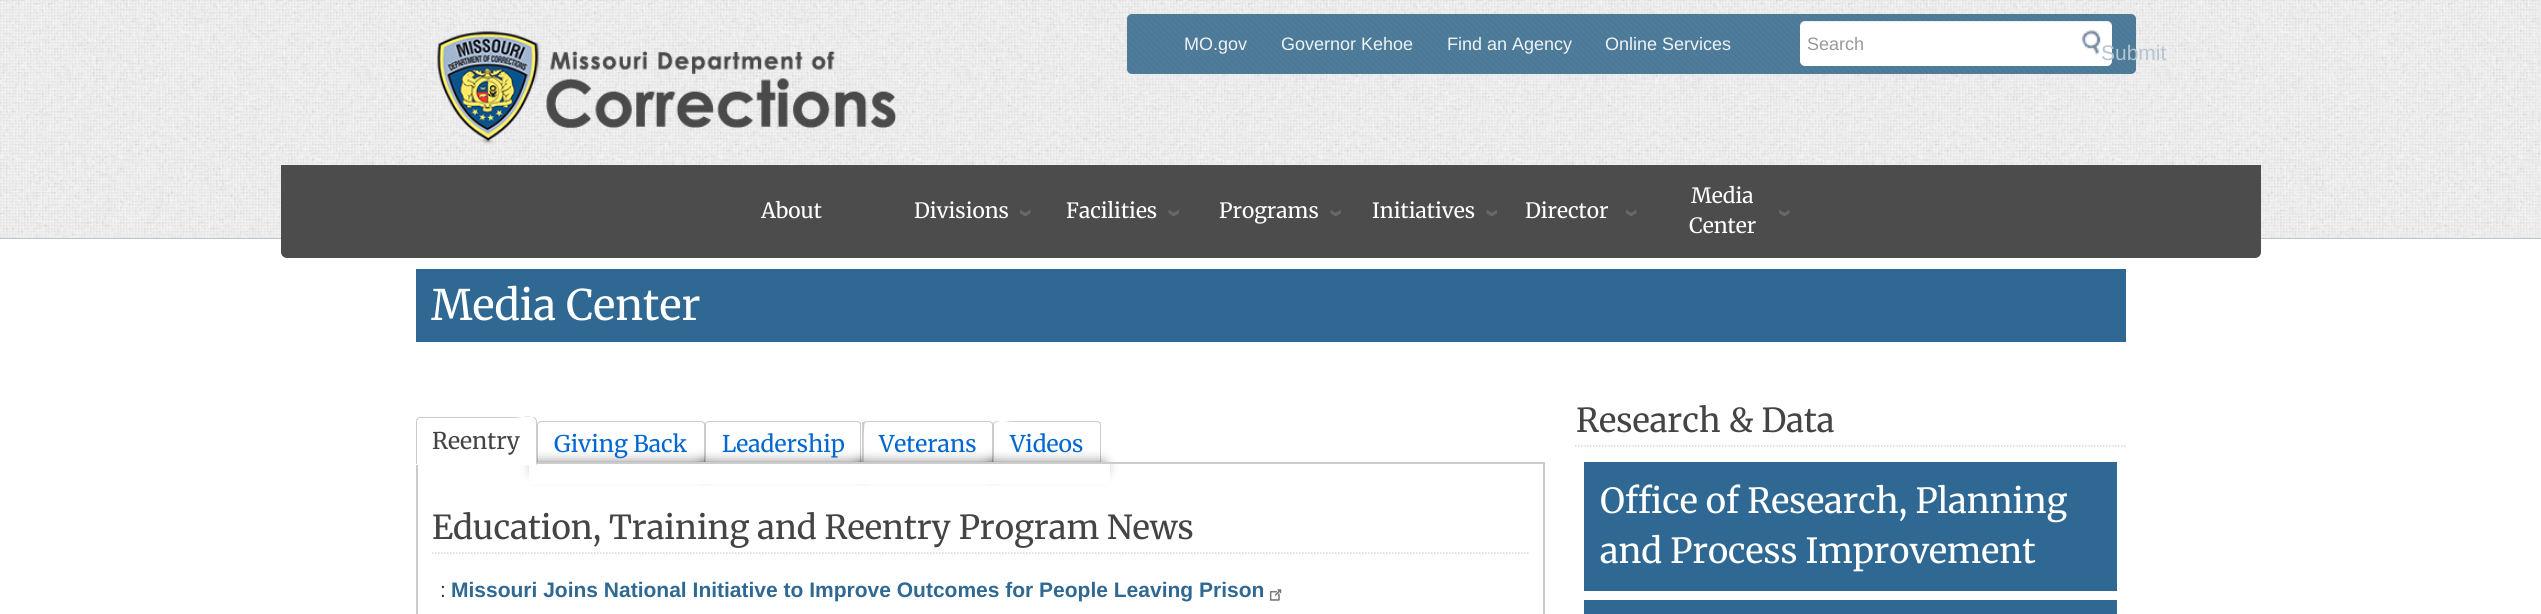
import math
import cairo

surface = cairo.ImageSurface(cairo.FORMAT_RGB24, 2541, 614)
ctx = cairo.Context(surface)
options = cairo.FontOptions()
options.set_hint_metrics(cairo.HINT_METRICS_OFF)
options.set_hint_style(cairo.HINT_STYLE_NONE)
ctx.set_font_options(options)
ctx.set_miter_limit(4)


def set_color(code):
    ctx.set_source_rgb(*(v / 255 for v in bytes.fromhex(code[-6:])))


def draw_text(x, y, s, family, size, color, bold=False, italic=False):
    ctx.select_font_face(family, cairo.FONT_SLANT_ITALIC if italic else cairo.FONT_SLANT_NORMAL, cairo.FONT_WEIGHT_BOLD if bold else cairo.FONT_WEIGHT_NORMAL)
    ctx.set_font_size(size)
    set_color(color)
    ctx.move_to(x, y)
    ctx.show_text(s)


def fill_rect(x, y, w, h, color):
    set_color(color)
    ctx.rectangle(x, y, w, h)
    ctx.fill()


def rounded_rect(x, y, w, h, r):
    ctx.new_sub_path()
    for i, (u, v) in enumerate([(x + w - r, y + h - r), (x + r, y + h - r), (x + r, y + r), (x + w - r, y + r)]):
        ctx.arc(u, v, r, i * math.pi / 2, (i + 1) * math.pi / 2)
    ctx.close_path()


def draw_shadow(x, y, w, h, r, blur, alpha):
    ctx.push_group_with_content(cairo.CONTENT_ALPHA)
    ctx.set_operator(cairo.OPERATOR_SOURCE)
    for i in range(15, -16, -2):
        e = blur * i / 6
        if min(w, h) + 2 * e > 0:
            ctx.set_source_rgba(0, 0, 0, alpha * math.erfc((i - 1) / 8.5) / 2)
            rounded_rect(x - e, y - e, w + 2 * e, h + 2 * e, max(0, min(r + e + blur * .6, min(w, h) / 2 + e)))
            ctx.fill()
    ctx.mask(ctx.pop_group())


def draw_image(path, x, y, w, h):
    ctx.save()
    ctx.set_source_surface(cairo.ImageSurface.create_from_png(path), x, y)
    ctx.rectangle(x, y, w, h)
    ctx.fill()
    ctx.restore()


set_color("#ffffff")
ctx.paint()
fill_rect(0, 238, 2541, 1, "#89a0b1")
draw_image("assets/img1.png", 0, 0, 2541, 239)
draw_image("assets/img2.png", 436, 31, 461, 114)
set_color("#4f7e9d")
rounded_rect(1127, 14, 1009, 60, 5)
ctx.fill()
draw_image("assets/img3.png", 1127, 14, 1009, 59)
draw_text(1184, 50, "MO.gov", "Liberation Sans", 18, "#eff3f6")
draw_text(1281, 50, "Governor Kehoe", "Liberation Sans", 18, "#eff3f6")
draw_text(1447, 50, "Find an Agency", "Liberation Sans", 18, "#eff3f6")
draw_text(1605, 50, "Online Services", "Liberation Sans", 18, "#eff3f6")
set_color("#ffffff")
rounded_rect(1800, 21, 312, 45, 5)
ctx.fill()
ctx.set_source_rgba(0, 0, 0, 0.07)
ctx.new_path()
ctx.move_to(1804, 22)
ctx.line_to(2108, 22)
ctx.curve_to(2110, 22, 2112, 25, 2112, 27)
ctx.curve_to(2112, 24, 2110, 21, 2107, 21)
ctx.line_to(1805, 21)
ctx.curve_to(1802, 21, 1800, 24, 1800, 27)
ctx.curve_to(1800, 25, 1802, 22, 1804, 22)
ctx.close_path()
ctx.fill()
draw_text(1807, 50, "Search", "Liberation Sans", 18, "#999999")
draw_image("assets/img4.png", 2081, 29, 20, 26)
draw_text(2101, 60, "Submit", "Liberation Sans", 21, "#b5c5d0")
fill_rect(281, 165, 1980, 6, "#4c4c4c")
rounded_rect(281, 165, 1980, 93, 6)
ctx.fill()
draw_text(761, 218, "About", "Merriweather Light", 21, "#ffffff")
draw_text(914, 218, "Divisions", "Merriweather Light", 21, "#ffffff")
draw_image("assets/img5.png", 1020, 210, 11, 6)
draw_text(1066, 218, "Facilities", "Merriweather Light", 21, "#ffffff")
draw_image("assets/img6.png", 1168, 210, 11, 6)
draw_text(1219, 218, "Programs", "Merriweather Light", 21, "#ffffff")
draw_image("assets/img6.png", 1330, 210, 11, 6)
draw_text(1372, 218, "Initiatives", "Merriweather Light", 21, "#ffffff")
draw_image("assets/img6.png", 1486, 210, 11, 6)
draw_text(1525, 218, "Director", "Merriweather Light", 21, "#ffffff")
draw_image("assets/img5.png", 1626, 210, 11, 6)
draw_text(1691, 203, "Media", "Merriweather Light", 21, "#ffffff")
draw_image("assets/img5.png", 1779, 210, 11, 6)
draw_text(1689, 233, "Center", "Merriweather Light", 21, "#ffffff")
fill_rect(416, 269, 1710, 73, "#2f6993")
draw_text(431, 320, "Media Center", "Merriweather Light", 42, "#ffffff")
set_color("#cccccc")
ctx.new_path()
ctx.move_to(541, 421)
ctx.line_to(538, 422)
ctx.line_to(539, 423)
ctx.line_to(541, 422)
ctx.line_to(701, 422)
ctx.line_to(703, 423)
ctx.line_to(704, 422)
ctx.line_to(701, 421)
ctx.close_path()
ctx.fill()
ctx.new_path()
ctx.move_to(704, 422)
ctx.line_to(705, 423)
ctx.line_to(705, 469)
ctx.line_to(703, 467)
ctx.line_to(704, 467)
ctx.line_to(704, 424)
ctx.line_to(703, 423)
ctx.close_path()
ctx.fill()
ctx.new_path()
ctx.move_to(537, 469)
ctx.line_to(539, 467)
ctx.line_to(538, 467)
ctx.line_to(538, 424)
ctx.line_to(539, 423)
ctx.line_to(538, 422)
ctx.line_to(537, 424)
ctx.close_path()
ctx.fill()
set_color("#000000")
draw_shadow(539, 467, 165, 2, 0, 7.5, 1)
ctx.set_source_rgba(1, 1, 1, 0.8)
ctx.new_path()
ctx.move_to(709, 422)
ctx.line_to(857, 422)
ctx.curve_to(859, 422, 861, 424, 861, 426)
ctx.line_to(861, 470)
ctx.line_to(705, 470)
ctx.line_to(705, 426)
ctx.curve_to(705, 424, 707, 422, 709, 422)
ctx.close_path()
ctx.fill()
set_color("#cccccc")
ctx.new_path()
ctx.move_to(709, 421)
ctx.line_to(706, 422)
ctx.line_to(707, 423)
ctx.line_to(709, 422)
ctx.line_to(857, 422)
ctx.line_to(859, 423)
ctx.line_to(860, 422)
ctx.line_to(857, 421)
ctx.close_path()
ctx.fill()
ctx.new_path()
ctx.move_to(860, 422)
ctx.line_to(861, 423)
ctx.line_to(861, 469)
ctx.line_to(859, 467)
ctx.line_to(860, 467)
ctx.line_to(860, 424)
ctx.line_to(859, 423)
ctx.close_path()
ctx.fill()
ctx.new_path()
ctx.move_to(705, 469)
ctx.line_to(707, 467)
ctx.line_to(706, 467)
ctx.line_to(706, 424)
ctx.line_to(707, 423)
ctx.line_to(706, 422)
ctx.line_to(705, 424)
ctx.close_path()
ctx.fill()
set_color("#000000")
draw_shadow(707, 467, 153, 2, 0, 7.5, 1)
ctx.set_source_rgba(1, 1, 1, 0.8)
ctx.new_path()
ctx.move_to(867, 422)
ctx.line_to(989, 422)
ctx.curve_to(991, 422, 993, 424, 993, 426)
ctx.line_to(993, 470)
ctx.line_to(863, 470)
ctx.line_to(863, 426)
ctx.curve_to(863, 424, 865, 422, 867, 422)
ctx.close_path()
ctx.fill()
set_color("#cccccc")
ctx.new_path()
ctx.move_to(866, 421)
ctx.line_to(863, 422)
ctx.line_to(865, 423)
ctx.line_to(866, 422)
ctx.line_to(989, 422)
ctx.line_to(991, 423)
ctx.line_to(992, 422)
ctx.line_to(989, 421)
ctx.close_path()
ctx.fill()
ctx.new_path()
ctx.move_to(992, 422)
ctx.line_to(993, 423)
ctx.line_to(993, 469)
ctx.line_to(991, 467)
ctx.line_to(992, 467)
ctx.line_to(992, 424)
ctx.line_to(991, 423)
ctx.close_path()
ctx.fill()
ctx.new_path()
ctx.move_to(862, 469)
ctx.line_to(864, 467)
ctx.curve_to(864, 462, 863, 424, 865, 423)
ctx.line_to(863, 422)
ctx.line_to(862, 422)
ctx.close_path()
ctx.fill()
set_color("#000000")
draw_shadow(864, 467, 128, 2, 0, 7.5, 1)
ctx.set_source_rgba(1, 1, 1, 0.8)
ctx.new_path()
ctx.move_to(997, 422)
ctx.line_to(1097, 422)
ctx.curve_to(1099, 422, 1101, 424, 1101, 426)
ctx.line_to(1101, 470)
ctx.line_to(993, 470)
ctx.line_to(993, 426)
ctx.curve_to(993, 424, 995, 422, 997, 422)
ctx.close_path()
ctx.fill()
set_color("#cccccc")
ctx.new_path()
ctx.move_to(997, 421)
ctx.line_to(994, 422)
ctx.line_to(995, 423)
ctx.curve_to(1000, 419, 1007, 422, 1014, 422)
ctx.line_to(1097, 422)
ctx.line_to(1099, 423)
ctx.line_to(1100, 422)
ctx.line_to(1097, 421)
ctx.close_path()
ctx.fill()
ctx.new_path()
ctx.move_to(1100, 422)
ctx.line_to(1101, 423)
ctx.line_to(1101, 469)
ctx.line_to(1099, 467)
ctx.line_to(1100, 467)
ctx.line_to(1100, 424)
ctx.line_to(1099, 423)
ctx.close_path()
ctx.fill()
ctx.new_path()
ctx.move_to(993, 469)
ctx.line_to(995, 467)
ctx.line_to(994, 467)
ctx.line_to(994, 424)
ctx.line_to(995, 423)
ctx.line_to(994, 422)
ctx.line_to(993, 424)
ctx.close_path()
ctx.fill()
set_color("#000000")
draw_shadow(995, 467, 105, 2, 0, 7.5, 1)
fill_rect(529, 464, 581, 20, "#ffffff")
ctx.rectangle(417, 463, 1127, 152)
set_color("#cccccc")
ctx.stroke()
set_color("#ffffff")
ctx.new_path()
ctx.move_to(420, 417)
ctx.line_to(533, 417)
ctx.curve_to(535, 417, 537, 419, 537, 421)
ctx.line_to(537, 465)
ctx.line_to(416, 465)
ctx.line_to(416, 421)
ctx.curve_to(416, 419, 418, 417, 420, 417)
ctx.close_path()
ctx.fill()
set_color("#cccccc")
ctx.new_path()
ctx.move_to(419, 417)
ctx.line_to(417, 418)
ctx.line_to(418, 419)
ctx.line_to(419, 418)
ctx.line_to(514, 418)
ctx.curve_to(521, 418, 530, 414, 535, 419)
ctx.line_to(536, 418)
ctx.line_to(533, 417)
ctx.close_path()
ctx.fill()
ctx.new_path()
ctx.move_to(537, 465)
ctx.line_to(537, 421)
ctx.curve_to(537, 420, 536, 419, 536, 418)
ctx.line_to(535, 419)
ctx.line_to(536, 421)
ctx.line_to(536, 464)
ctx.close_path()
ctx.fill()
ctx.new_path()
ctx.move_to(417, 418)
ctx.line_to(416, 421)
ctx.line_to(416, 464)
ctx.line_to(417, 464)
ctx.line_to(417, 421)
ctx.line_to(418, 419)
ctx.close_path()
ctx.fill()
draw_text(432, 449, "Reentry", "Merriweather Light", 23, "#444444")
draw_text(554, 452, "Giving Back", "Merriweather Light", 23, "#0367d2")
draw_text(722, 452, "Leadership", "Merriweather Light", 23, "#0367d2")
draw_text(879, 452, "Veterans", "Merriweather Light", 23, "#0367d2")
draw_text(1010, 452, "Videos", "Merriweather Light", 23, "#0367d2")
ctx.new_path()
ctx.move_to(432, 553)
ctx.line_to(1528.5, 553)
set_color("#d8d8d8")
ctx.set_line_width(1.5)
ctx.set_dash([1.5, 1.5])
ctx.stroke()
draw_text(432, 539, "Education, Training and Reentry Program News", "Merriweather Light", 33, "#444444")
draw_text(440, 597, ":", "Liberation Sans", 21, "#333333")
draw_text(451, 597, "Missouri Joins National Initiative to Improve Outcomes for People Leaving Prison", "Liberation Sans", 21, "#2f6993", bold=True)
draw_image("assets/img7.png", 1269, 589, 13, 12)
ctx.new_path()
ctx.move_to(1575, 446)
ctx.line_to(2125.5, 446)
set_color("#d8d8d8")
ctx.stroke()
draw_text(1576, 432, "Research & Data", "Merriweather Light", 33, "#444444")
fill_rect(1584, 462, 533, 129, "#2f6993")
draw_text(1600, 513, "Office of Research, Planning", "Merriweather Light", 34.5, "#ffffff")
draw_text(1600, 563, "and Process Improvement", "Merriweather Light", 34.5, "#ffffff")
fill_rect(1584, 600, 533, 14, "#2f6993")
surface.write_to_png("output.png")
